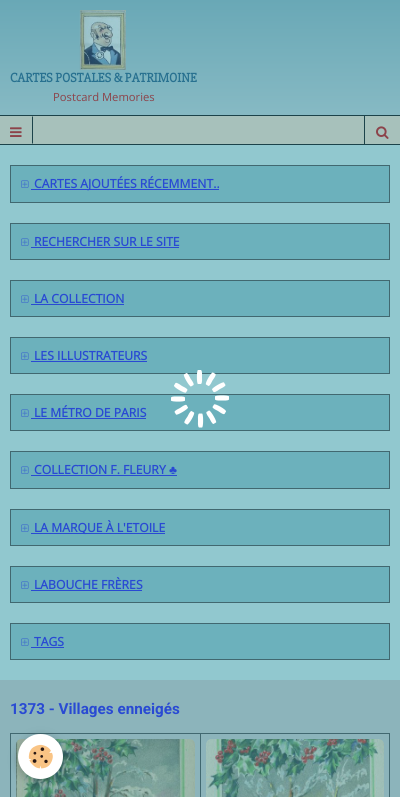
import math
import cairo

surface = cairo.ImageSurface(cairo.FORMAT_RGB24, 400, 797)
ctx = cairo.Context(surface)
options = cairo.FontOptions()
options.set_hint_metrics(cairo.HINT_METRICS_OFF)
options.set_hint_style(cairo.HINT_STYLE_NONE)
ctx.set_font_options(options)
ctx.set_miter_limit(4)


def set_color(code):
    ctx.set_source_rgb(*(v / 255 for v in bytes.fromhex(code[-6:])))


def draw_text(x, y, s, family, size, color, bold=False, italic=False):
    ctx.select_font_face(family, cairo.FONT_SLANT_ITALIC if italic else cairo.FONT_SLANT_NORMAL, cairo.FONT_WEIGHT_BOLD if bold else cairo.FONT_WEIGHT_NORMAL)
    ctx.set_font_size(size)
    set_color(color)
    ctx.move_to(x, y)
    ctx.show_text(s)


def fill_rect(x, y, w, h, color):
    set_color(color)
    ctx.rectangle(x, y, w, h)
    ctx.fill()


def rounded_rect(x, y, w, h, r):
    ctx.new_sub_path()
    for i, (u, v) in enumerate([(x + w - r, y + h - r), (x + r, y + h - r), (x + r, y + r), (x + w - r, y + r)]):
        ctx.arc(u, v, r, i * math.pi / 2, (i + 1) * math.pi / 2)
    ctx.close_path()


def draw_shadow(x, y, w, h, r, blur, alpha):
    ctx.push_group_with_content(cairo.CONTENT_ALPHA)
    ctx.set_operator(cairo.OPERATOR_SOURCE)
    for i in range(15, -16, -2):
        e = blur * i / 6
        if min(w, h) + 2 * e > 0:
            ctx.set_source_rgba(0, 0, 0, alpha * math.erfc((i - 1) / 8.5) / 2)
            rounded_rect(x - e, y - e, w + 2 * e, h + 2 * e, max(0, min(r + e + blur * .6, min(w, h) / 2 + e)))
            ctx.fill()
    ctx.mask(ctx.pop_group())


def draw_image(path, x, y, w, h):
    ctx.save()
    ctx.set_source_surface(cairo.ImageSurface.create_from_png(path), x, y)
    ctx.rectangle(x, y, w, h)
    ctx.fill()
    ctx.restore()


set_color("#a2cad1")
ctx.paint()
draw_image("assets/img1.png", 0, 680, 400, 117)
gradient = cairo.LinearGradient(200, 0, 200, 145)
gradient.add_color_stop_rgba(0, 0.412, 0.659, 0.714, 1)
gradient.add_color_stop_rgba(1, 0.557, 0.745, 0.78, 1)
ctx.set_source(gradient)
ctx.rectangle(0, 0, 400, 115)
ctx.fill()
draw_image("assets/img2.png", 79, 10, 47, 60)
draw_text(10, 82, "CARTES POSTALES & PATRIMOINE", "Slabo 27px", 13.25, "#287190", bold=True)
draw_text(53, 101, "Postcard Memories", "Open Sans", 11.25, "#8c434a")
fill_rect(0, 116, 400, 28, "#a7c1bb")
fill_rect(0, 115, 400, 1, "#1c434a")
fill_rect(0, 144, 400, 1, "#1c434a")
ctx.new_path()
ctx.move_to(33, 116)
ctx.line_to(33, 144)
ctx.line_to(32, 143)
ctx.line_to(32, 117)
ctx.close_path()
ctx.fill()
draw_image("assets/img3.png", 10, 127, 12, 10)
fill_rect(364, 116, 1, 28, "#1c434a")
draw_image("assets/img4.png", 376, 126, 13, 13)
fill_rect(0, 145, 400, 535, "#91c8cf")
set_color("#6cb1bc")
ctx.rectangle(10.5, 165.5, 379, 37)
ctx.fill_preserve()
set_color("#416870")
ctx.set_line_width(1)
ctx.stroke()
draw_image("assets/img5.png", 21, 180, 8, 8)
fill_rect(31, 189, 188, 1, "#294ad3")
draw_text(34, 188, "CARTES AJOUTÉES RÉCEMMENT..", "Open Sans", 12.2, "#294ad3", bold=True)
set_color("#6cb1bc")
ctx.rectangle(10.5, 223.5, 379, 36)
ctx.fill_preserve()
set_color("#416870")
ctx.stroke()
draw_image("assets/img5.png", 21, 238, 8, 8)
draw_text(34, 246, "RECHERCHER SUR LE SITE", "Open Sans", 12.2, "#294ad3", bold=True)
fill_rect(31, 247, 148, 1, "#294ad3")
set_color("#6cb1bc")
ctx.rectangle(10.5, 280.5, 379, 36)
ctx.fill_preserve()
set_color("#416870")
ctx.stroke()
draw_image("assets/img5.png", 21, 295, 8, 8)
draw_text(34, 303, "LA COLLECTION", "Open Sans", 12.2, "#294ad3", bold=True)
fill_rect(31, 304, 93, 1, "#294ad3")
set_color("#6cb1bc")
ctx.rectangle(10.5, 337.5, 379, 36)
ctx.fill_preserve()
set_color("#416870")
ctx.stroke()
draw_image("assets/img5.png", 21, 352, 8, 8)
draw_text(34, 360, "LES ILLUSTRATEURS", "Open Sans", 12.2, "#294ad3", bold=True)
fill_rect(31, 361, 116, 1, "#294ad3")
set_color("#6cb1bc")
ctx.rectangle(10.5, 394.5, 379, 36)
ctx.fill_preserve()
set_color("#416870")
ctx.stroke()
draw_image("assets/img5.png", 21, 409, 8, 8)
draw_text(34, 417, "LE MÉTRO DE PARIS", "Open Sans", 12.2, "#294ad3", bold=True)
fill_rect(31, 418, 115, 1, "#294ad3")
set_color("#6cb1bc")
ctx.rectangle(10.5, 451.5, 379, 37)
ctx.fill_preserve()
set_color("#416870")
ctx.stroke()
draw_image("assets/img5.png", 21, 466, 8, 8)
draw_text(34, 474, "COLLECTION F. FLEURY", "Open Sans", 12.2, "#294ad3", bold=True)
draw_text(169, 474, "♣", "Liberation Serif", 12.2, "#294ad3", bold=True)
fill_rect(31, 475, 146, 1, "#294ad3")
set_color("#6cb1bc")
ctx.rectangle(10.5, 509.5, 379, 36)
ctx.fill_preserve()
set_color("#416870")
ctx.stroke()
draw_image("assets/img5.png", 21, 524, 8, 8)
fill_rect(31, 533, 134, 1, "#294ad3")
draw_text(34, 532, "LA MARQUE À L'ETOILE", "Open Sans", 12.2, "#294ad3", bold=True)
set_color("#6cb1bc")
ctx.rectangle(10.5, 566.5, 379, 36)
ctx.fill_preserve()
set_color("#416870")
ctx.stroke()
draw_image("assets/img5.png", 21, 581, 8, 8)
draw_text(34, 589, "LABOUCHE FRÈRES", "Open Sans", 12.2, "#294ad3", bold=True)
fill_rect(31, 590, 111, 1, "#294ad3")
set_color("#6cb1bc")
ctx.rectangle(10.5, 623.5, 379, 36)
ctx.fill_preserve()
set_color("#416870")
ctx.stroke()
draw_image("assets/img5.png", 21, 638, 8, 8)
draw_text(34, 646, "TAGS", "Open Sans", 12.2, "#294ad3", bold=True)
fill_rect(31, 647, 33, 1, "#294ad3")
draw_text(10, 714, "1373 - Villages enneigés", "Roboto", 15.25, "#294ad3", bold=True)
fill_rect(10, 733, 1, 64, "#416870")
fill_rect(11, 733, 379, 1, "#416870")
fill_rect(200, 733, 1, 64, "#416870")
draw_image("assets/img6.png", 16, 739, 179, 58)
fill_rect(389, 733, 1, 64, "#416870")
draw_image("assets/img7.png", 206, 739, 178, 58)
set_color("#ffffff")
ctx.new_path()
ctx.move_to(198, 370)
ctx.line_to(201, 370)
ctx.curve_to(202.5, 371, 202, 376, 202, 377)
ctx.curve_to(202, 378, 202.5, 383, 201, 384)
ctx.line_to(198, 384)
ctx.curve_to(196.5, 384, 196.5, 370, 198, 370)
ctx.close_path()
ctx.move_to(213, 372.5)
ctx.line_to(215.5, 374)
ctx.curve_to(216.5, 375.5, 213, 379.5, 212.5, 380.5)
ctx.curve_to(212, 381.5, 210, 386, 208.5, 386)
ctx.line_to(206, 384.5)
ctx.curve_to(204.5, 383.5, 211.5, 371.5, 213, 372.5)
ctx.close_path()
ctx.fill()
ctx.new_path()
ctx.move_to(224, 382.5)
ctx.line_to(225.5, 385)
ctx.curve_to(225.5, 386.5, 221, 388.5, 220, 389)
ctx.curve_to(219, 389.5, 215, 393, 213.5, 392)
ctx.line_to(212, 389.5)
ctx.curve_to(211.5, 388, 223.5, 381, 224, 382.5)
ctx.close_path()
ctx.move_to(229, 396.5)
ctx.line_to(229, 399.5)
ctx.curve_to(228, 401, 223, 400.5, 222, 400.5)
ctx.curve_to(221, 400.5, 216, 401, 215, 399.5)
ctx.line_to(215, 396.5)
ctx.curve_to(215, 395, 229, 395, 229, 396.5)
ctx.close_path()
ctx.move_to(226, 411.5)
ctx.line_to(224.5, 414)
ctx.curve_to(223, 415, 219, 411.5, 218, 411)
ctx.curve_to(217, 410.5, 212.5, 408.5, 212.5, 407)
ctx.line_to(214, 404.5)
ctx.curve_to(215, 403, 227, 410, 226, 411.5)
ctx.close_path()
ctx.fill()
ctx.new_path()
ctx.move_to(216, 422.5)
ctx.line_to(213.5, 424)
ctx.curve_to(212, 424, 210, 419.5, 209.5, 418.5)
ctx.curve_to(209, 417.5, 205.5, 413.5, 206.5, 412)
ctx.line_to(209, 410.5)
ctx.curve_to(210.5, 410, 217.5, 422, 216, 422.5)
ctx.close_path()
ctx.move_to(202, 427.5)
ctx.line_to(199, 427.5)
ctx.curve_to(197.5, 426.5, 198, 421.5, 198, 420.5)
ctx.curve_to(198, 419.5, 197.5, 414.5, 199, 413.5)
ctx.line_to(202, 413.5)
ctx.curve_to(203.5, 413.5, 203.5, 427.5, 202, 427.5)
ctx.close_path()
ctx.move_to(187, 424.5)
ctx.line_to(184.5, 423)
ctx.curve_to(183.5, 421.5, 187, 417.5, 187.5, 416.5)
ctx.curve_to(188, 415.5, 190, 411, 191.5, 411)
ctx.line_to(194, 412.5)
ctx.curve_to(195.5, 413.5, 188.5, 425.5, 187, 424.5)
ctx.close_path()
ctx.fill()
ctx.new_path()
ctx.move_to(176, 414.5)
ctx.line_to(174.5, 412)
ctx.curve_to(174.5, 410.5, 179, 408.5, 180, 408)
ctx.curve_to(181, 407.5, 185, 404, 186.5, 405)
ctx.line_to(188, 407.5)
ctx.curve_to(188.5, 409, 176.5, 416, 176, 414.5)
ctx.close_path()
ctx.move_to(171, 400.5)
ctx.line_to(171, 397.5)
ctx.curve_to(172, 396, 177, 396.5, 178, 396.5)
ctx.curve_to(179, 396.5, 184, 396, 185, 397.5)
ctx.line_to(185, 400.5)
ctx.curve_to(185, 402, 171, 402, 171, 400.5)
ctx.close_path()
ctx.move_to(174, 385.5)
ctx.line_to(175.5, 383)
ctx.curve_to(177, 382, 181, 385.5, 182, 386)
ctx.curve_to(183, 386.5, 187.5, 388.5, 187.5, 390)
ctx.line_to(186, 392.5)
ctx.curve_to(185, 394, 173, 387, 174, 385.5)
ctx.close_path()
ctx.fill()
ctx.new_path()
ctx.move_to(184, 374.5)
ctx.line_to(186.5, 373)
ctx.curve_to(188, 373, 190, 377.5, 190.5, 378.5)
ctx.curve_to(191, 379.5, 194.5, 383.5, 193.5, 385)
ctx.line_to(191, 386.5)
ctx.curve_to(189.5, 387, 182.5, 375, 184, 374.5)
ctx.close_path()
ctx.fill()
set_color("#000000")
draw_shadow(18, 737, 45, 45, 22.5, 5, 0.24)
set_color("#ffffff")
ctx.arc(40.5, 756.5, 22.5, 0, 2 * math.pi)
ctx.fill()
draw_image("assets/img8.png", 28, 744, 25, 25)
surface.write_to_png("output.png")
